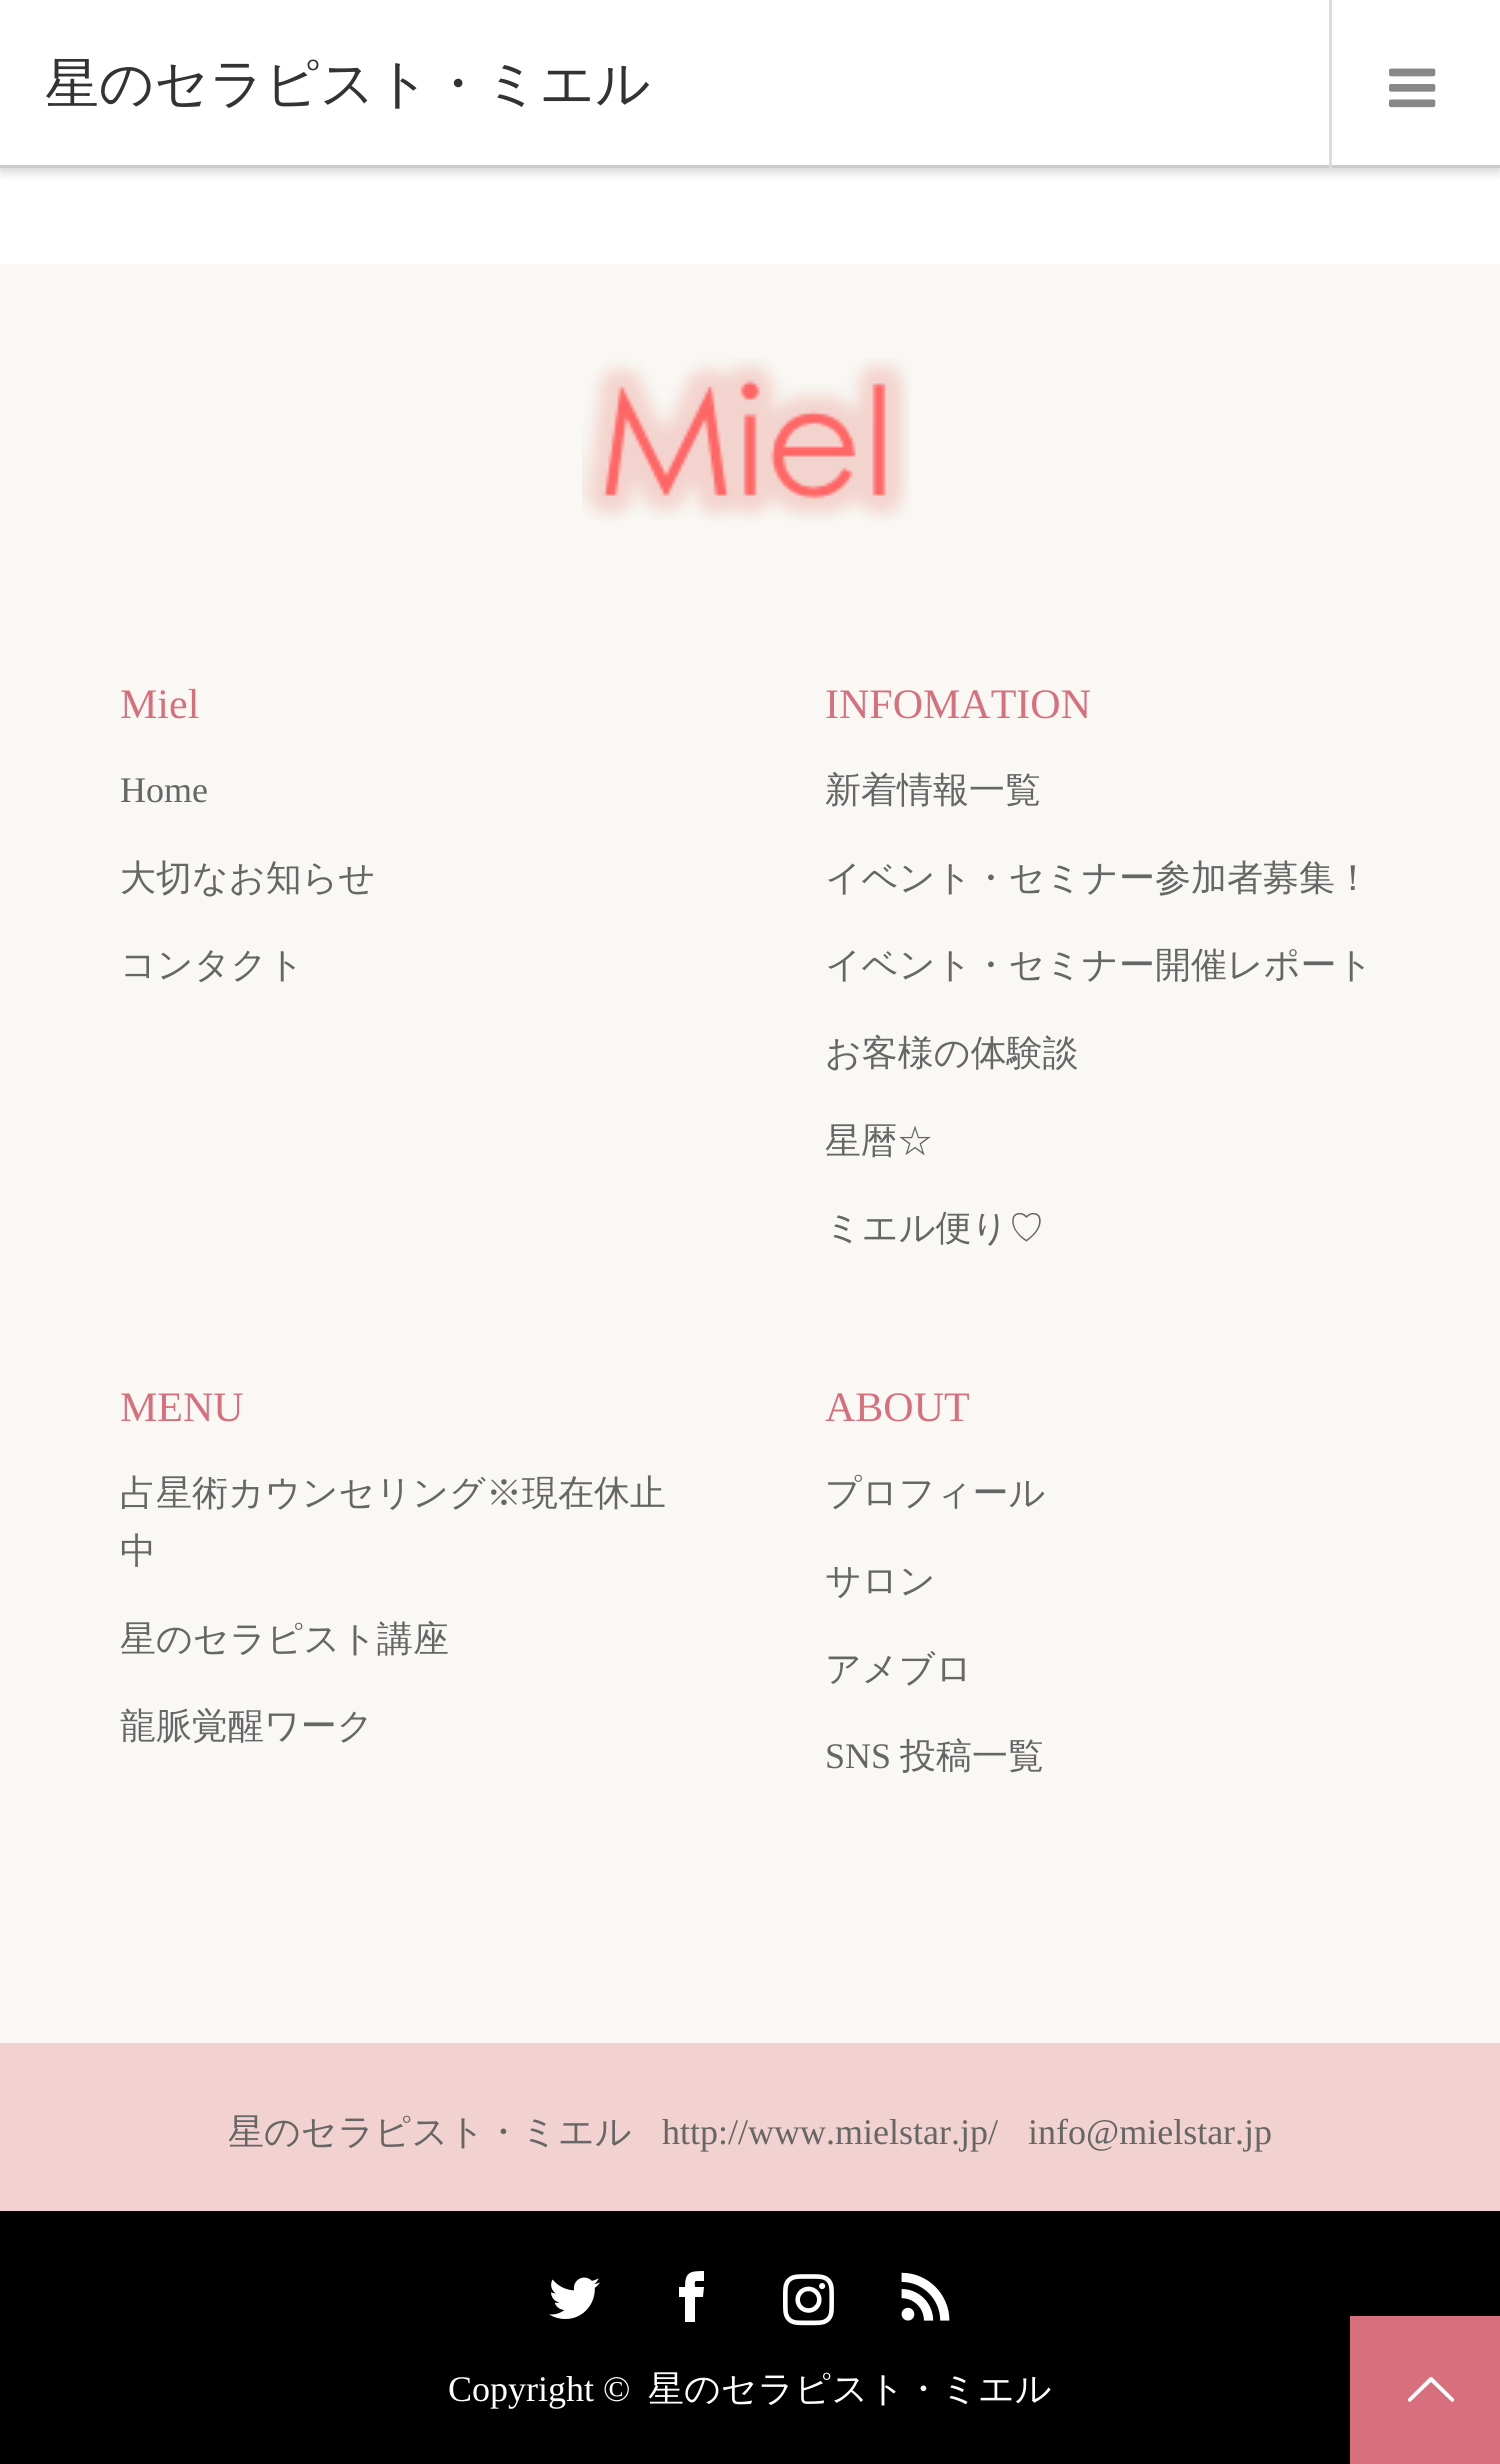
import math
import cairo

surface = cairo.ImageSurface(cairo.FORMAT_RGB24, 1500, 2464)
ctx = cairo.Context(surface)
options = cairo.FontOptions()
options.set_hint_metrics(cairo.HINT_METRICS_OFF)
options.set_hint_style(cairo.HINT_STYLE_NONE)
ctx.set_font_options(options)
ctx.set_miter_limit(4)


def set_color(code):
    ctx.set_source_rgb(*(v / 255 for v in bytes.fromhex(code[-6:])))


def draw_text(x, y, s, family, size, color, bold=False, italic=False):
    ctx.select_font_face(family, cairo.FONT_SLANT_ITALIC if italic else cairo.FONT_SLANT_NORMAL, cairo.FONT_WEIGHT_BOLD if bold else cairo.FONT_WEIGHT_NORMAL)
    ctx.set_font_size(size)
    set_color(color)
    ctx.move_to(x, y)
    ctx.show_text(s)


def fill_rect(x, y, w, h, color):
    set_color(color)
    ctx.rectangle(x, y, w, h)
    ctx.fill()


def rounded_rect(x, y, w, h, r):
    ctx.new_sub_path()
    for i, (u, v) in enumerate([(x + w - r, y + h - r), (x + r, y + h - r), (x + r, y + r), (x + w - r, y + r)]):
        ctx.arc(u, v, r, i * math.pi / 2, (i + 1) * math.pi / 2)
    ctx.close_path()


def draw_shadow(x, y, w, h, r, blur, alpha):
    ctx.push_group_with_content(cairo.CONTENT_ALPHA)
    ctx.set_operator(cairo.OPERATOR_SOURCE)
    for i in range(15, -16, -2):
        e = blur * i / 6
        if min(w, h) + 2 * e > 0:
            ctx.set_source_rgba(0, 0, 0, alpha * math.erfc((i - 1) / 8.5) / 2)
            rounded_rect(x - e, y - e, w + 2 * e, h + 2 * e, max(0, min(r + e + blur * .6, min(w, h) / 2 + e)))
            ctx.fill()
    ctx.mask(ctx.pop_group())


def draw_image(path, x, y, w, h):
    ctx.save()
    ctx.set_source_surface(cairo.ImageSurface.create_from_png(path), x, y)
    ctx.rectangle(x, y, w, h)
    ctx.fill()
    ctx.restore()


set_color("#ffffff")
ctx.paint()
set_color("#000000")
draw_shadow(0, 3, 1500, 168, 0, 6, 0.2)
fill_rect(0, 0, 1500, 165, "#ffffff")
fill_rect(0, 165, 1500, 3, "#cccccc")
draw_text(45, 102, "星のセラピスト・ミエル", "WenQuanYi Zen Hei Medium", 54, "#333333")
fill_rect(1329, 0, 3, 168, "#dddddd")
draw_image("assets/img1.png", 1389, 68, 47, 40)
fill_rect(0, 264, 1500, 1779, "#f9f8f4")
draw_image("assets/img2.png", 582, 358, 329, 163)
draw_text(120, 718, "Miel", "Liberation Serif", 42, "#d86f7c")
draw_text(120, 802, "Home", "Liberation Serif", 36, "#666666")
draw_text(120, 890, "大切なお知らせ", "WenQuanYi Zen Hei Medium", 36, "#666666")
draw_text(120, 977, "コンタクト", "WenQuanYi Zen Hei Medium", 36, "#666666")
draw_text(825, 718, "INFOMATION", "Liberation Serif", 42, "#d86f7c")
draw_text(825, 802, "新着情報一覧", "WenQuanYi Zen Hei Medium", 36, "#666666")
draw_text(825, 890, "イベント・セミナー参加者募集！", "WenQuanYi Zen Hei Medium", 36, "#666666")
draw_text(825, 977, "イベント・セミナー開催レポート", "WenQuanYi Zen Hei Medium", 36, "#666666")
draw_text(825, 1065, "お客様の体験談", "WenQuanYi Zen Hei Medium", 36, "#666666")
draw_text(825, 1153, "星暦☆", "WenQuanYi Zen Hei Medium", 36, "#666666")
draw_text(825, 1240, "ミエル便り♡", "WenQuanYi Zen Hei Medium", 36, "#666666")
draw_text(120, 1421, "MENU", "Liberation Serif", 42, "#d86f7c")
draw_text(120, 1505, "占星術カウンセリング※現在休止", "WenQuanYi Zen Hei Medium", 36, "#666666")
draw_text(120, 1563, "中", "WenQuanYi Zen Hei Medium", 36, "#666666")
draw_text(120, 1651, "星のセラピスト講座", "WenQuanYi Zen Hei Medium", 36, "#666666")
draw_text(120, 1738, "龍脈覚醒ワーク", "WenQuanYi Zen Hei Medium", 36, "#666666")
draw_text(825, 1421, "ABOUT", "Liberation Serif", 42, "#d86f7c")
draw_text(825, 1505, "プロフィール", "WenQuanYi Zen Hei Medium", 36, "#666666")
draw_text(825, 1593, "サロン", "WenQuanYi Zen Hei Medium", 36, "#666666")
draw_text(825, 1681, "アメブロ", "WenQuanYi Zen Hei Medium", 36, "#666666")
draw_text(825, 1768, "SNS", "Liberation Serif", 36, "#666666")
draw_text(900, 1768, "投稿一覧", "WenQuanYi Zen Hei Medium", 36, "#666666")
fill_rect(0, 2043, 1500, 168, "#f2d2d0")
draw_text(228, 2144, "星のセラピスト・ミエル", "WenQuanYi Zen Hei Medium", 36, "#666666")
draw_text(662, 2144, "http://www.mielstar.jp/", "Liberation Serif", 36, "#666666")
draw_text(1028, 2144, "info@mielstar.jp", "Liberation Serif", 36, "#666666")
fill_rect(0, 2211, 1500, 253, "#000000")
draw_image("assets/img3.png", 549, 2277, 51, 42)
set_color("#ffffff")
ctx.new_path()
ctx.move_to(696, 2281)
ctx.line_to(704, 2281)
ctx.line_to(704, 2271)
ctx.curve_to(690, 2271, 685, 2272, 685, 2287)
ctx.line_to(679, 2287)
ctx.line_to(679, 2297)
ctx.line_to(685, 2297)
ctx.line_to(685, 2322)
ctx.line_to(695, 2322)
ctx.line_to(695, 2297)
ctx.line_to(703, 2297)
ctx.line_to(704, 2287)
ctx.line_to(695, 2287)
ctx.curve_to(695, 2286, 694, 2281, 696, 2281)
ctx.close_path()
ctx.fill()
draw_image("assets/img4.png", 783, 2274, 51, 52)
draw_image("assets/img5.png", 901, 2272, 49, 49)
draw_text(448, 2401, "Copyright ©", "Liberation Serif", 36, "#ffffff")
draw_text(648, 2401, "星のセラピスト・ミエル", "WenQuanYi Zen Hei Medium", 36, "#ffffff")
fill_rect(1350, 2316, 150, 148, "#d86f7c")
draw_image("assets/img6.png", 1407, 2377, 48, 25)
surface.write_to_png("output.png")
